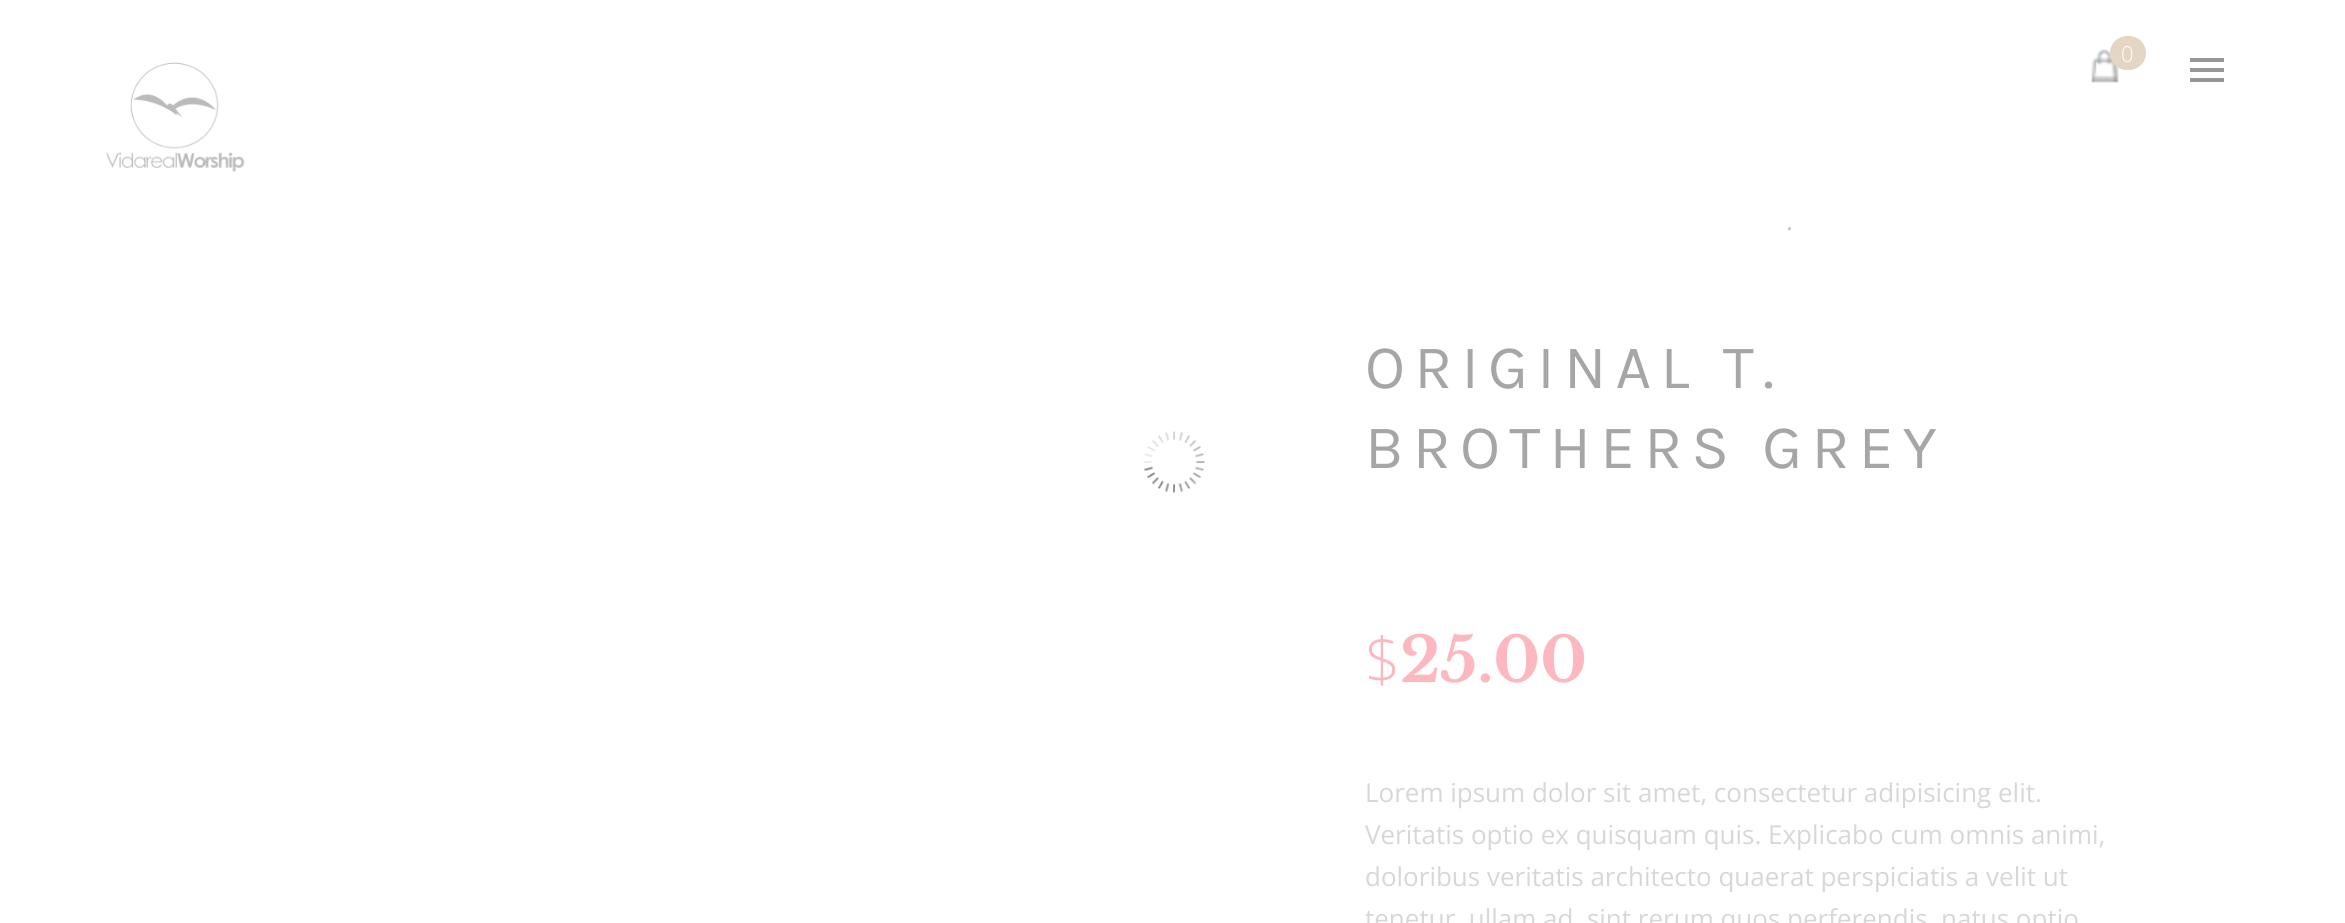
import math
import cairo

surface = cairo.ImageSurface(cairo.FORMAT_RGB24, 2345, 923)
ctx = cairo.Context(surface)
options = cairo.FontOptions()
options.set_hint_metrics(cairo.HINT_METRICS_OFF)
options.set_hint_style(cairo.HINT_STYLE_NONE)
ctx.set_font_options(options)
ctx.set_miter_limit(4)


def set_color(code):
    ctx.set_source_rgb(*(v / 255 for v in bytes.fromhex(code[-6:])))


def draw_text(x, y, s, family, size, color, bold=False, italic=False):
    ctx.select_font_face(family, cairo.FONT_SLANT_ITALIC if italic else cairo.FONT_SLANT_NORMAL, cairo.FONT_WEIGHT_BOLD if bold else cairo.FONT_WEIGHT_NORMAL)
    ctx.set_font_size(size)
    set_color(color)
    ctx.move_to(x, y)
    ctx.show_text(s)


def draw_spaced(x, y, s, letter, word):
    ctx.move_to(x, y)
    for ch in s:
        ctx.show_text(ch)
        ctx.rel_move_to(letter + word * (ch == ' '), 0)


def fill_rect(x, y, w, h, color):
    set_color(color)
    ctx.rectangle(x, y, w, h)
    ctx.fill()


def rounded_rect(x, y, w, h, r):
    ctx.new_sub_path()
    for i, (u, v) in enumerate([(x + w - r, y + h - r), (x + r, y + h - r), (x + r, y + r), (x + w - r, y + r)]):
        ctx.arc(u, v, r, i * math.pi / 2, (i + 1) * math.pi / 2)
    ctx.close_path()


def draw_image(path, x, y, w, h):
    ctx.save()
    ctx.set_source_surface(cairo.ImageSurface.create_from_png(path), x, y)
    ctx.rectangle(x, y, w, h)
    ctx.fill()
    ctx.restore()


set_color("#ffffff")
ctx.paint()
draw_image("assets/img1.png", 1143, 431, 62, 62)
draw_image("assets/img2.png", 2091, 49, 28, 34)
set_color("#e3d6c2")
rounded_rect(2110, 36, 36, 34, 17)
ctx.fill()
draw_text(2121, 62, "0", "Open Sans Light", 22, "#ffffff")
fill_rect(2190, 58, 34, 4, "#969696")
fill_rect(2190, 68, 34, 4, "#969696")
fill_rect(2190, 78, 34, 4, "#969696")
draw_image("assets/img3.png", 106, 62, 139, 110)
draw_text(1786, 230, ".", "Open Sans", 26, "#c7c7c7")
ctx.select_font_face("Karla")
ctx.set_font_size(62)
set_color("#a6a6a6")
draw_spaced(1365, 388, "ORIGINAL T.", 9.25, 0)
draw_spaced(1365, 468, "BROTHERS GREY", 9.25, 0)
draw_text(1365, 682, "$", "Open Sans Light", 62, "#fdb8bf")
draw_text(1400, 682, "25.00", "Libre Baskerville", 62, "#fdb8bf", bold=True)
draw_text(1365, 802, "Lorem ipsum dolor sit amet, consectetur adipisicing elit.", "Open Sans", 26, "#d7d7d7")
draw_text(1365, 844, "Veritatis optio ex quisquam quis. Explicabo cum omnis animi,", "Open Sans", 26, "#d7d7d7")
draw_text(1365, 886, "doloribus veritatis architecto quaerat perspiciatis a velit ut", "Open Sans", 26, "#d7d7d7")
draw_text(1365, 928, "tenetur, ullam ad, sint rerum quos perferendis, natus optio", "Open Sans", 26, "#d7d7d7")
surface.write_to_png("output.png")
